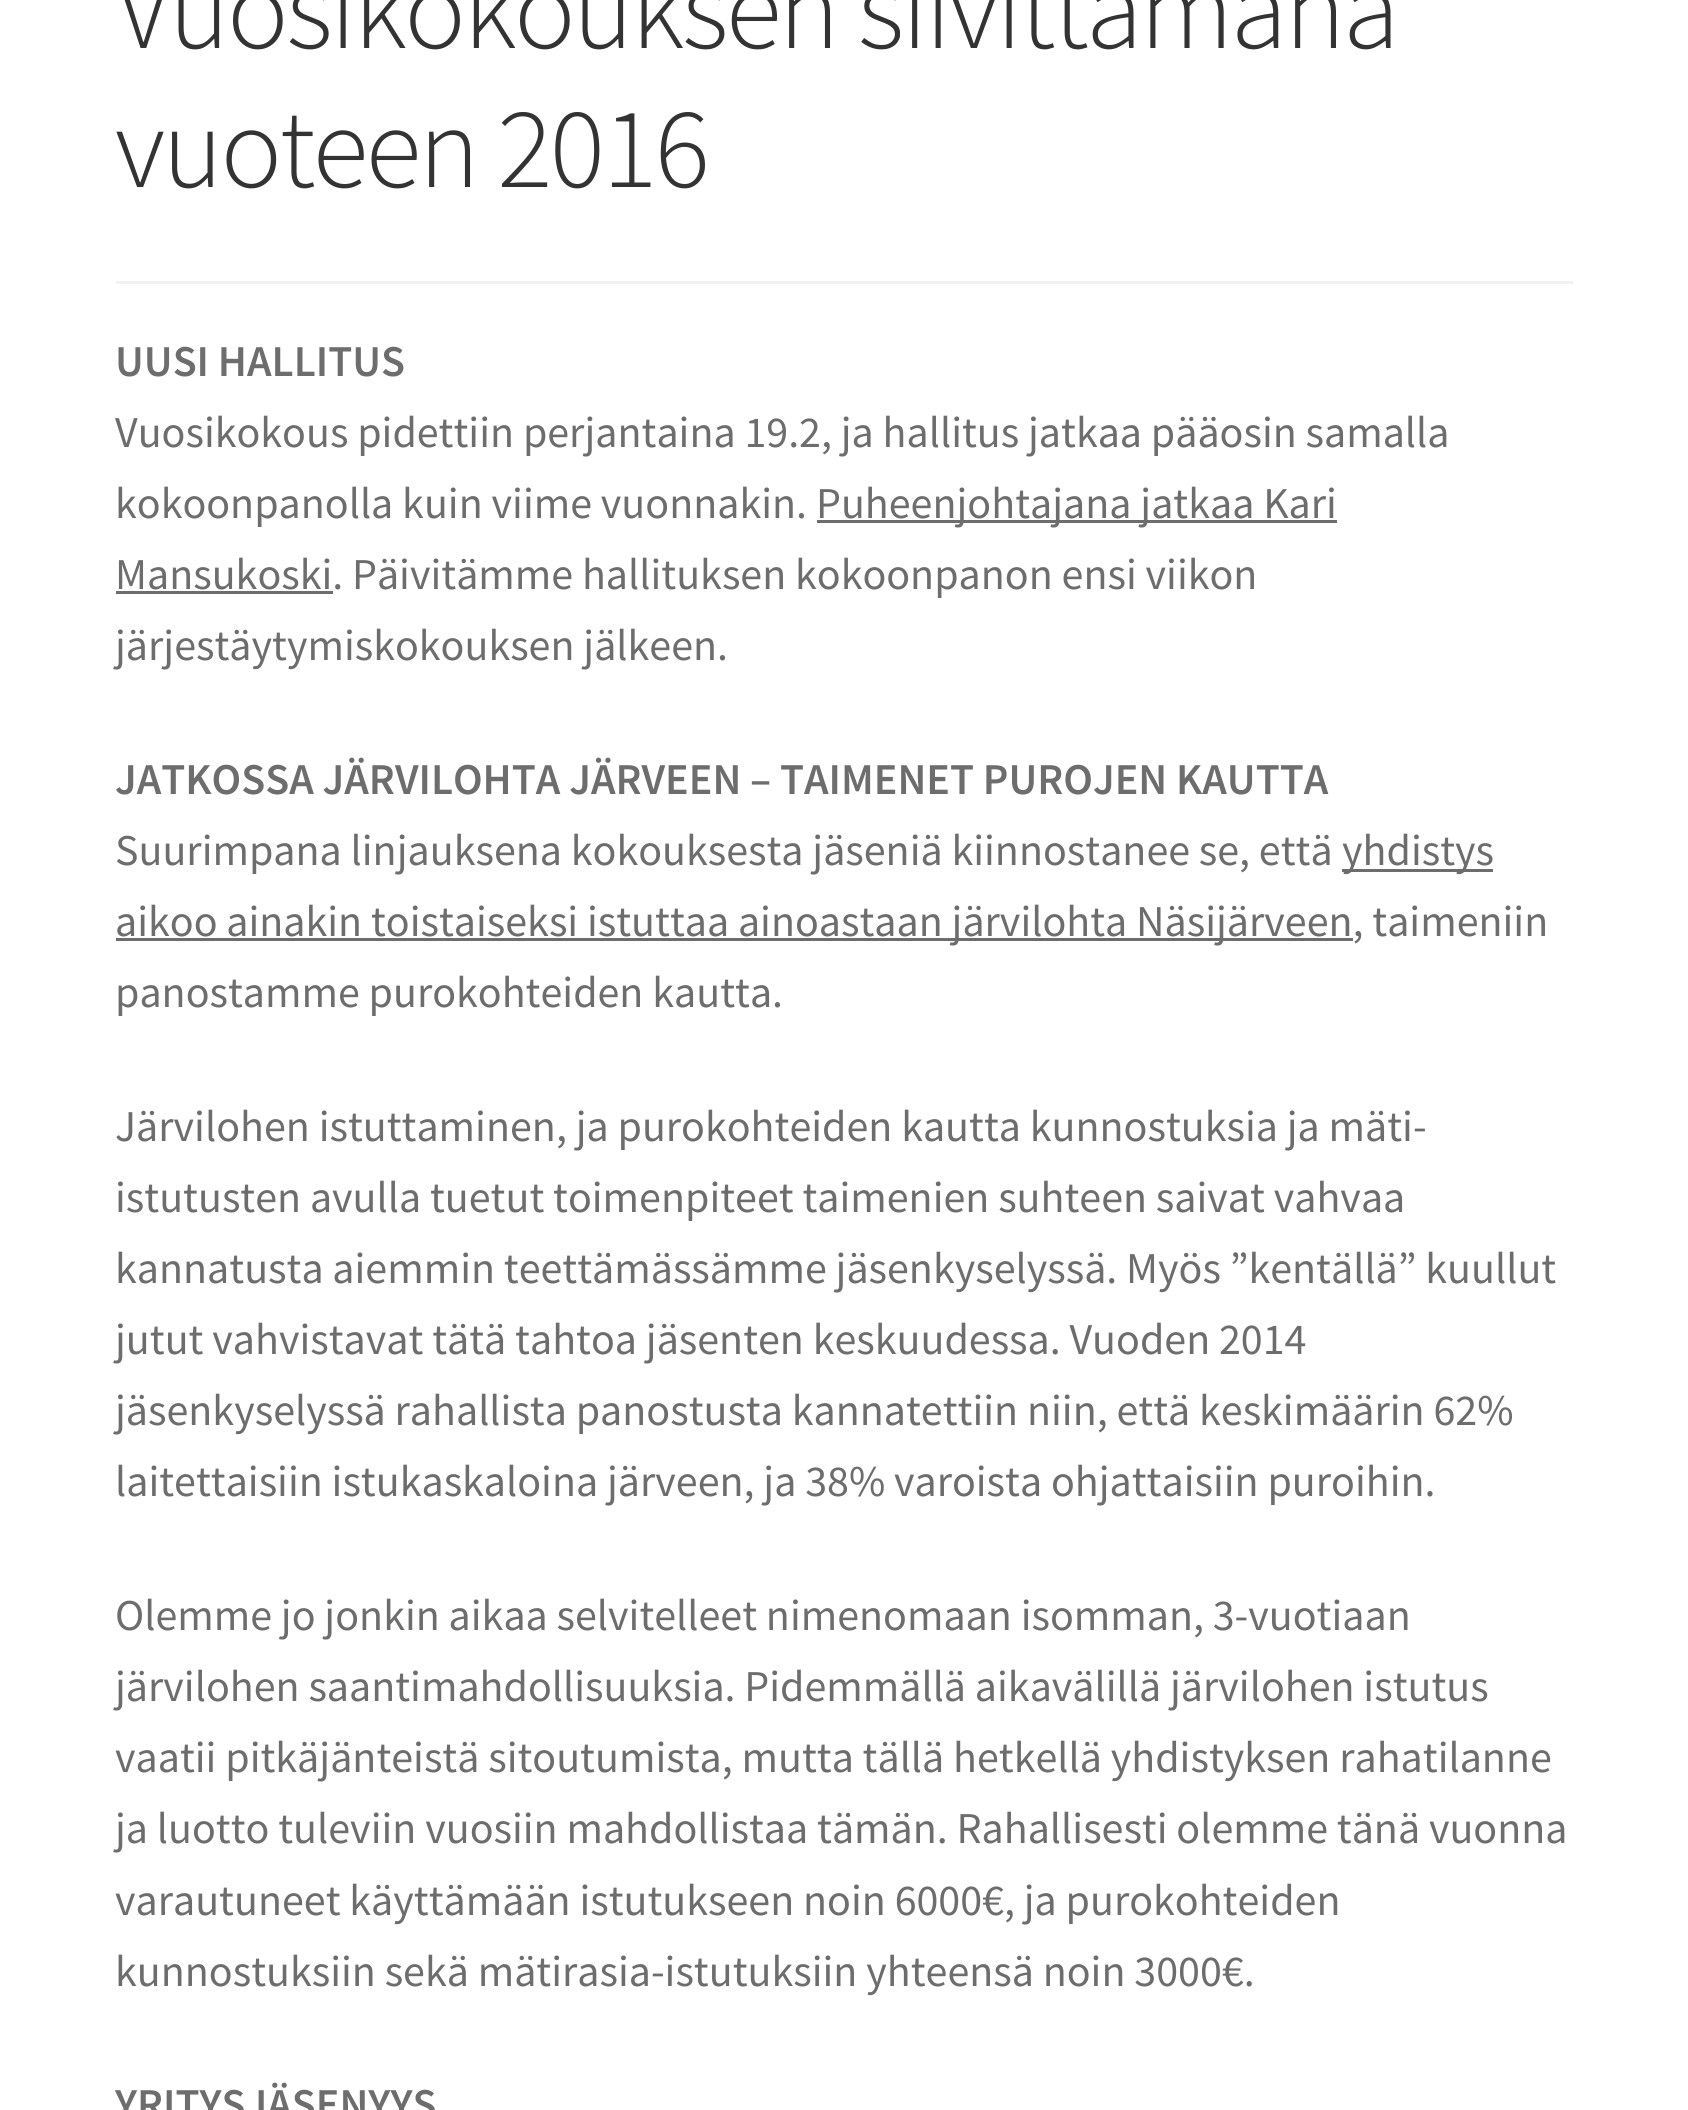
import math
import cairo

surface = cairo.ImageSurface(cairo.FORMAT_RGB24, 1688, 2110)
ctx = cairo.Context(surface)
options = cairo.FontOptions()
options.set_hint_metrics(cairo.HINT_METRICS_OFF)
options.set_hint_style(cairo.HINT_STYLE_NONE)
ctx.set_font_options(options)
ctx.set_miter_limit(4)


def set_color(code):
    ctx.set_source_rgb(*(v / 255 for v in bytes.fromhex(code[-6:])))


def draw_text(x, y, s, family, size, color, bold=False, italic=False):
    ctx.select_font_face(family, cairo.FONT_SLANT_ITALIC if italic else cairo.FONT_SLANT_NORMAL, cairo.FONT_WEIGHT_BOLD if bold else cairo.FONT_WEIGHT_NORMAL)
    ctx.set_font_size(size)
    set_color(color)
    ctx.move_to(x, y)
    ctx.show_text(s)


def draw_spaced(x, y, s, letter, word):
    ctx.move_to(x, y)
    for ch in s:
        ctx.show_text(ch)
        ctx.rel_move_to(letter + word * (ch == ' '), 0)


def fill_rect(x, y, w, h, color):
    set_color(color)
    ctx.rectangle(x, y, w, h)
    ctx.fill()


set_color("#ffffff")
ctx.paint()
fill_rect(116, 281, 1457, 3, "#f2f2f2")
ctx.select_font_face("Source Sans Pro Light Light")
ctx.set_font_size(115.25)
set_color("#333333")
draw_spaced(115, 48, "Vuosikokouksen siivittämänä", -2.75, 0)
draw_spaced(115, 187, "vuoteen 2016", -2.75, 0)
draw_text(115, 376, "UUSI HALLITUS", "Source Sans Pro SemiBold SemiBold", 44, "#6d6d6d")
draw_text(115, 447, "Vuosikokous pidettiin perjantaina 19.2, ja hallitus jatkaa pääosin samalla", "Source Sans Pro", 44, "#6d6d6d")
draw_text(115, 518, "kokoonpanolla kuin viime vuonnakin.", "Source Sans Pro", 44, "#6d6d6d")
fill_rect(817, 520, 520, 3, "#6d6d6d")
draw_text(816, 518, "Puheenjohtajana jatkaa Kari", "Source Sans Pro", 44, "#6d6d6d")
fill_rect(116, 591, 217, 3, "#6d6d6d")
draw_text(115, 589, "Mansukoski. Päivitämme hallituksen kokoonpanon ensi viikon", "Source Sans Pro", 44, "#6d6d6d")
draw_text(115, 660, "järjestäytymiskokouksen jälkeen.", "Source Sans Pro", 44, "#6d6d6d")
draw_text(115, 794, "JATKOSSA JÄRVILOHTA JÄRVEEN – TAIMENET PUROJEN KAUTTA", "Source Sans Pro SemiBold SemiBold", 44, "#6d6d6d")
draw_text(115, 865, "Suurimpana linjauksena kokouksesta jäseniä kiinnostanee se, että", "Source Sans Pro", 44, "#6d6d6d")
fill_rect(1342, 869, 151, 3, "#6d6d6d")
draw_text(1342, 865, "yhdistys", "Source Sans Pro", 44, "#6d6d6d")
fill_rect(116, 938, 1237, 3, "#6d6d6d")
draw_text(115, 936, "aikoo ainakin toistaiseksi istuttaa ainoastaan järvilohta Näsijärveen, taimeniin", "Source Sans Pro", 44, "#6d6d6d")
draw_text(115, 1007, "panostamme purokohteiden kautta.", "Source Sans Pro", 44, "#6d6d6d")
draw_text(115, 1141, "Järvilohen istuttaminen, ja purokohteiden kautta kunnostuksia ja mäti-", "Source Sans Pro", 44, "#6d6d6d")
draw_text(115, 1212, "istutusten avulla tuetut toimenpiteet taimenien suhteen saivat vahvaa", "Source Sans Pro", 44, "#6d6d6d")
draw_text(115, 1283, "kannatusta aiemmin teettämässämme jäsenkyselyssä. Myös ”kentällä” kuullut", "Source Sans Pro", 44, "#6d6d6d")
draw_text(115, 1354, "jutut vahvistavat tätä tahtoa jäsenten keskuudessa. Vuoden 2014", "Source Sans Pro", 44, "#6d6d6d")
draw_text(115, 1425, "jäsenkyselyssä rahallista panostusta kannatettiin niin, että keskimäärin 62%", "Source Sans Pro", 44, "#6d6d6d")
draw_text(115, 1496, "laitettaisiin istukaskaloina järveen, ja 38% varoista ohjattaisiin puroihin.", "Source Sans Pro", 44, "#6d6d6d")
draw_text(115, 1630, "Olemme jo jonkin aikaa selvitelleet nimenomaan isomman, 3-vuotiaan", "Source Sans Pro", 44, "#6d6d6d")
draw_text(115, 1701, "järvilohen saantimahdollisuuksia. Pidemmällä aikavälillä järvilohen istutus", "Source Sans Pro", 44, "#6d6d6d")
draw_text(115, 1772, "vaatii pitkäjänteistä sitoutumista, mutta tällä hetkellä yhdistyksen rahatilanne", "Source Sans Pro", 44, "#6d6d6d")
draw_text(115, 1843, "ja luotto tuleviin vuosiin mahdollistaa tämän. Rahallisesti olemme tänä vuonna", "Source Sans Pro", 44, "#6d6d6d")
draw_text(115, 1915, "varautuneet käyttämään istutukseen noin 6000€, ja purokohteiden", "Source Sans Pro", 44, "#6d6d6d")
draw_text(115, 1986, "kunnostuksiin sekä mätirasia-istutuksiin yhteensä noin 3000€.", "Source Sans Pro", 44, "#6d6d6d")
draw_text(115, 2119, "YRITYSJÄSENYYS", "Source Sans Pro SemiBold SemiBold", 44, "#6d6d6d")
surface.write_to_png("output.png")
